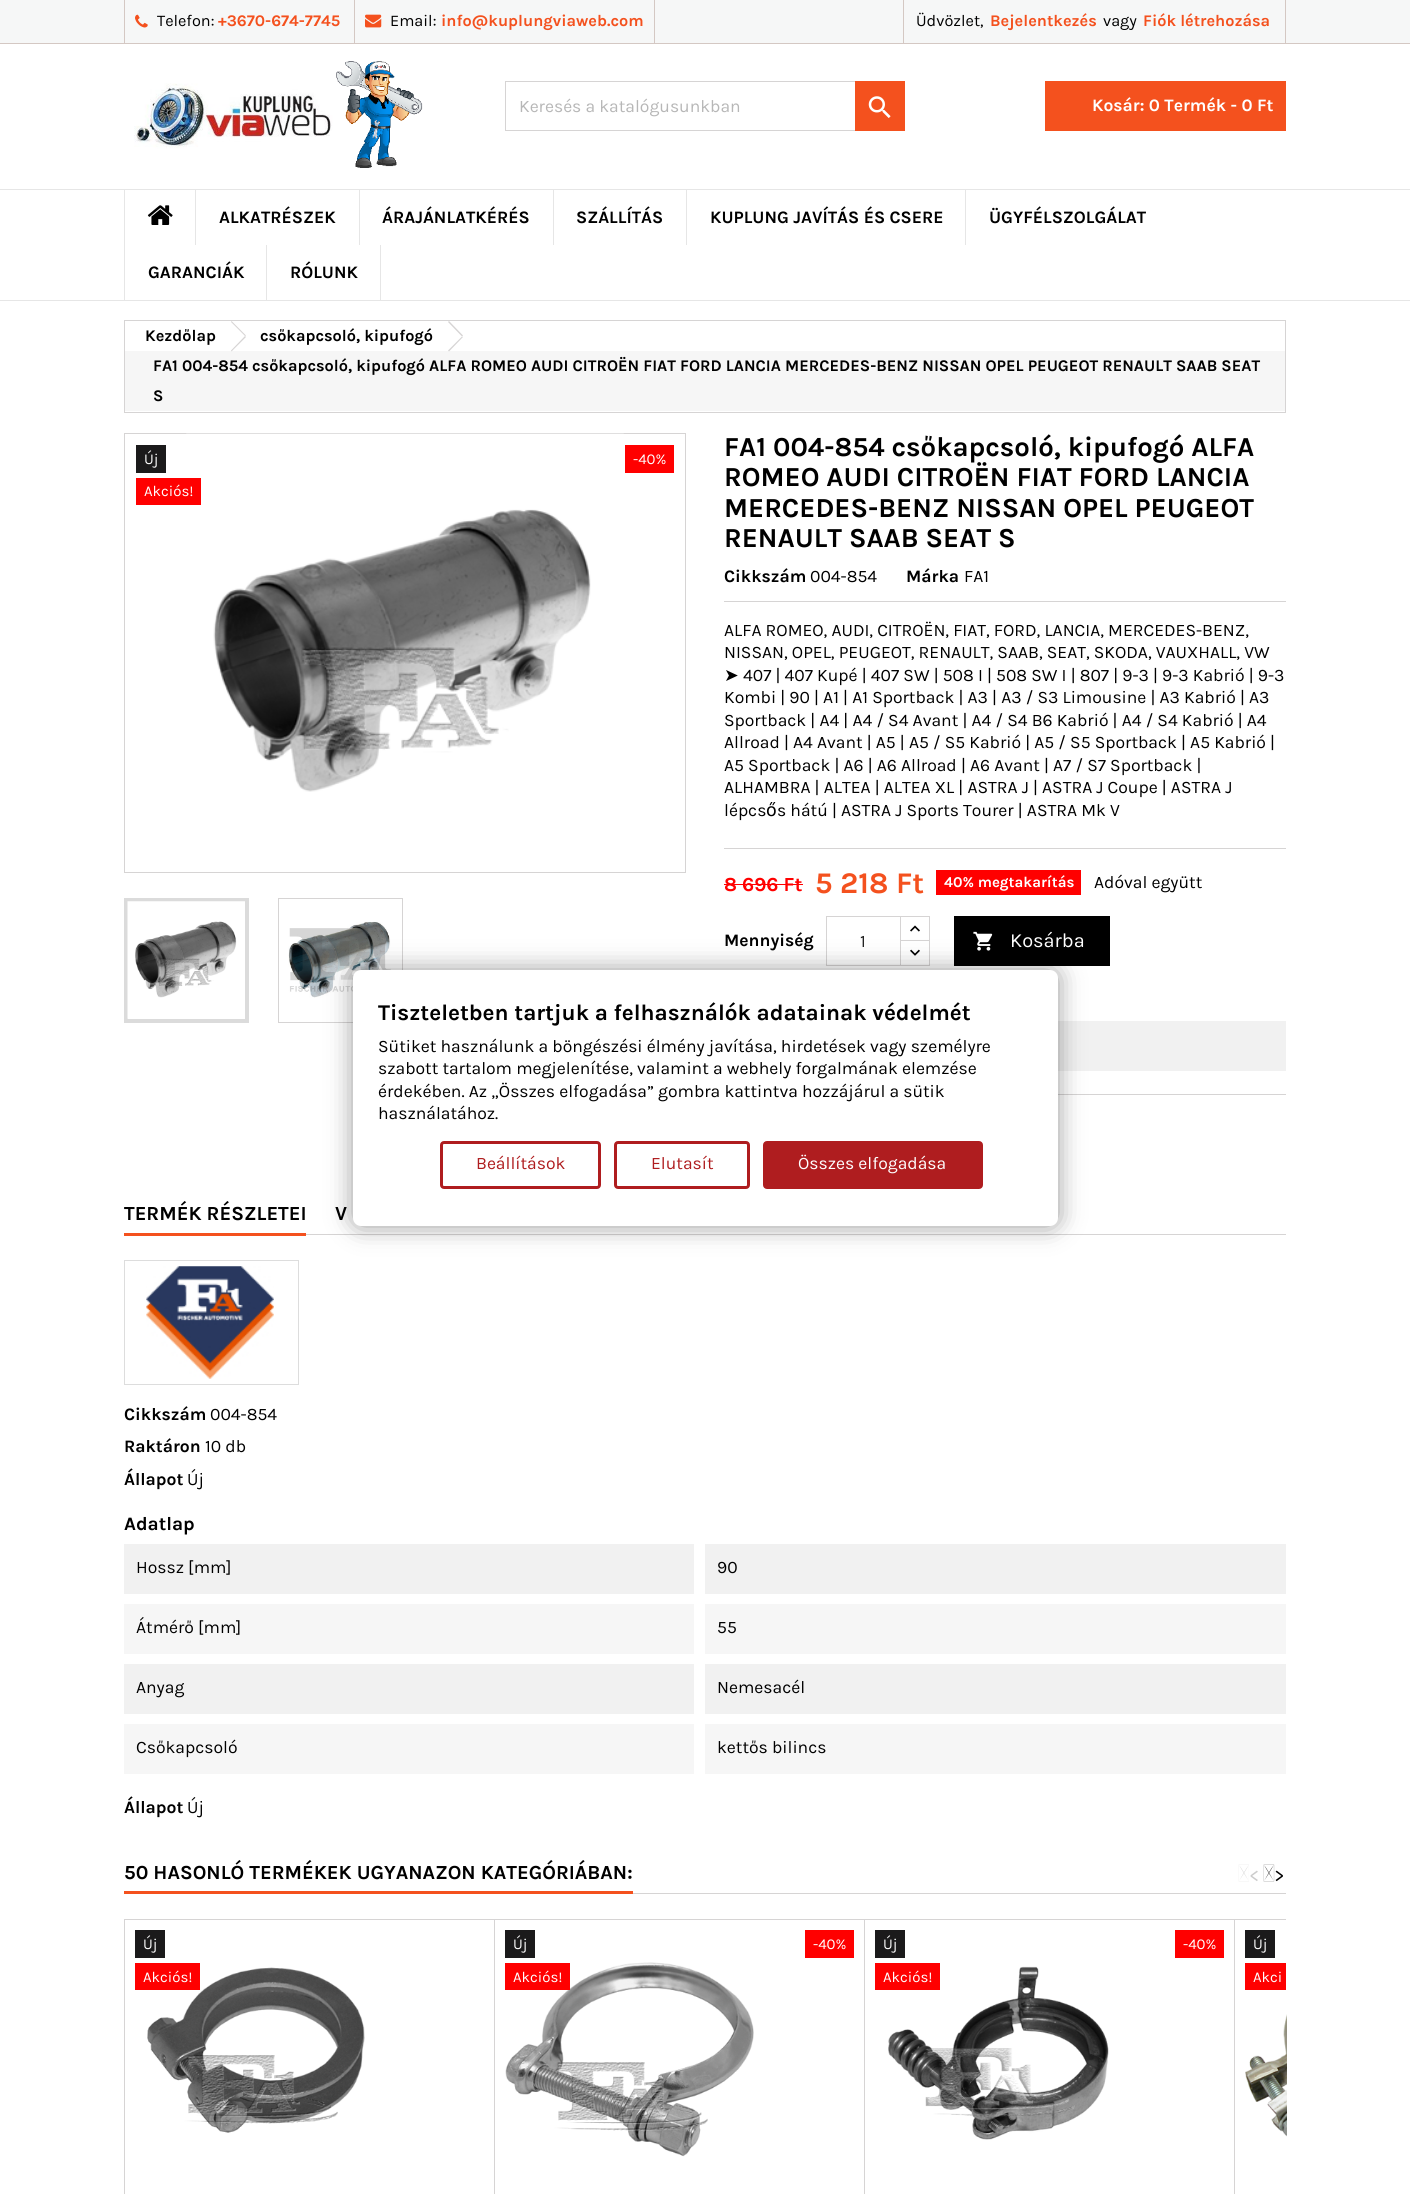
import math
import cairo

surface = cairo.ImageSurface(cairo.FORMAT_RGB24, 1410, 2194)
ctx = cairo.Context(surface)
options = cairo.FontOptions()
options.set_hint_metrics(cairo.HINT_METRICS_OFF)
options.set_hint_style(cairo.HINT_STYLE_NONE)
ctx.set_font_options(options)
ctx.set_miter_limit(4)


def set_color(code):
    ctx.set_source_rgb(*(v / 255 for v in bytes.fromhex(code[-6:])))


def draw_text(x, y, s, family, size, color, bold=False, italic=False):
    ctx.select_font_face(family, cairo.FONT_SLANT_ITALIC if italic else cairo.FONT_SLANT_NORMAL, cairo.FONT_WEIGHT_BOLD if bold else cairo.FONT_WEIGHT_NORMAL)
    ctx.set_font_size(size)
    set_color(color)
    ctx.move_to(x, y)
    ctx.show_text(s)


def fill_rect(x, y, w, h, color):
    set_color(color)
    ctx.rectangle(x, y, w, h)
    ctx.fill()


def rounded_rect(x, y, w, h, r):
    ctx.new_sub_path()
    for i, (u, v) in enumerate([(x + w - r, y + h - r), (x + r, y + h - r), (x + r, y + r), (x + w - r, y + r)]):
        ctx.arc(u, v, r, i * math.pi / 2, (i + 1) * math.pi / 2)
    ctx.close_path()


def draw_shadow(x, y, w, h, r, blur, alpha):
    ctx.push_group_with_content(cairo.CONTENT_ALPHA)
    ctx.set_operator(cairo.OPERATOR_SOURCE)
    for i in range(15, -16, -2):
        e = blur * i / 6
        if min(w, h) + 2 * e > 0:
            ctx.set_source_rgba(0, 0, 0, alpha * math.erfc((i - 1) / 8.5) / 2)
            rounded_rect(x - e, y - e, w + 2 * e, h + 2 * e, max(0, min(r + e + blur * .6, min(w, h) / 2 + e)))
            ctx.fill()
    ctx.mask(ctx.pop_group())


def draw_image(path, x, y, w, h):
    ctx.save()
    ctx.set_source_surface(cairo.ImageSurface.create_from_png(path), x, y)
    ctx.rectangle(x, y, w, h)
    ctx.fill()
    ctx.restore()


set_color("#ffffff")
ctx.paint()
fill_rect(0, 0, 1410, 43, "#f6f7f7")
fill_rect(0, 43, 1410, 1, "#d4c8c3")
fill_rect(124, 0, 1, 43, "#d4c8c3")
draw_image("assets/img1.png", 135, 14, 13, 14)
draw_text(157, 26, "Telefon:", "Karla", 16.25, "#000000")
draw_text(218, 26, "+3670-674-7745", "Karla", 16.25, "#f4511e", bold=True)
fill_rect(654, 0, 1, 43, "#d4c8c3")
fill_rect(354, 0, 1, 43, "#d4c8c3")
draw_image("assets/img2.png", 365, 14, 17, 14)
draw_text(390, 26, "Email:", "Karla", 16.25, "#000000")
draw_text(441, 26, "info@kuplungviaweb.com", "Karla", 16.25, "#f4511e", bold=True)
fill_rect(1285, 0, 1, 43, "#d4c8c3")
fill_rect(903, 0, 1, 43, "#d4c8c3")
draw_text(916, 26, "Üdvözlet,", "Karla", 16.25, "#000000")
draw_text(990, 26, "Bejelentkezés", "Karla", 16.25, "#f4511e", bold=True)
draw_text(1103, 26, "vagy", "Karla", 16.25, "#000000")
draw_text(1143, 26, "Fiók létrehozása", "Karla", 16.25, "#f4511e", bold=True)
draw_image("assets/img3.png", 134, 61, 289, 107)
ctx.rectangle(505.5, 81.5, 399, 49)
set_color("#d6d4d4")
ctx.set_line_width(1)
ctx.stroke()
draw_text(519, 112, "Keresés a katalógusunkban", "Karla", 17.5, "#b7b7b7")
fill_rect(855, 81, 50, 50, "#f4511e")
draw_image("assets/img4.png", 868, 96, 23, 22)
fill_rect(1045, 81, 241, 50, "#f4511e")
draw_text(1092, 111, "Kosár: 0 Termék - 0 Ft", "Karla", 17.5, "#ffffff", bold=True)
fill_rect(0, 189, 1410, 1, "#e6e6e6")
fill_rect(0, 300, 1410, 1, "#e6e6e6")
fill_rect(124, 190, 1, 110, "#e6e6e6")
draw_image("assets/img5.png", 147, 205, 26, 20)
fill_rect(195, 190, 1, 55, "#e6e6e6")
draw_text(219, 223, "ALKATRÉSZEK", "Karla", 17.5, "#000000", bold=True)
fill_rect(359, 190, 1, 55, "#e6e6e6")
draw_text(382, 223, "ÁRAJÁNLATKÉRÉS", "Karla", 17.5, "#000000", bold=True)
fill_rect(553, 190, 1, 55, "#e6e6e6")
draw_text(576, 223, "SZÁLLÍTÁS", "Karla", 17.5, "#000000", bold=True)
fill_rect(686, 190, 1, 55, "#e6e6e6")
draw_text(710, 223, "KUPLUNG JAVÍTÁS ÉS CSERE", "Karla", 17.5, "#000000", bold=True)
fill_rect(965, 190, 1, 55, "#e6e6e6")
draw_text(989, 223, "ÜGYFÉLSZOLGÁLAT", "Karla", 17.5, "#000000", bold=True)
draw_text(148, 278, "GARANCIÁK", "Karla", 17.5, "#000000", bold=True)
fill_rect(380, 245, 1, 55, "#e6e6e6")
fill_rect(266, 245, 1, 55, "#e6e6e6")
draw_text(290, 278, "RÓLUNK", "Karla", 17.5, "#000000", bold=True)
ctx.rectangle(124.5, 320.5, 1161, 92)
set_color("#d6d4d4")
ctx.stroke()
draw_text(145, 341, "Kezdőlap", "Karla", 16.25, "#000000", bold=True)
fill_rect(125, 351, 1160, 60, "#f6f6f6")
set_color("#d6d4d4")
ctx.new_path()
ctx.move_to(231.5, 321)
ctx.line_to(246, 335.5)
ctx.line_to(245, 336)
ctx.line_to(231, 322)
ctx.close_path()
ctx.move_to(245, 336)
ctx.line_to(246, 337)
ctx.line_to(231.5, 351.5)
ctx.line_to(231, 350.5)
ctx.close_path()
ctx.fill()
draw_text(260, 341, "csőkapcsoló, kipufogó", "Karla", 16.25, "#000000", bold=True)
set_color("#d6d4d4")
ctx.new_path()
ctx.move_to(449, 321)
ctx.line_to(463, 335.5)
ctx.line_to(462, 336.5)
ctx.line_to(448, 322)
ctx.close_path()
ctx.fill()
ctx.new_path()
ctx.move_to(462, 336.5)
ctx.line_to(463, 337)
ctx.line_to(449, 351.5)
ctx.line_to(448, 350.5)
ctx.close_path()
ctx.fill()
draw_text(153, 371, "FA1 004-854 csőkapcsoló, kipufogó ALFA ROMEO AUDI CITROËN FIAT FORD LANCIA MERCEDES-BENZ NISSAN OPEL PEUGEOT RENAULT SAAB SEAT", "Karla", 16.25, "#000000", bold=True)
draw_text(153, 401, "S", "Karla", 16.25, "#000000", bold=True)
ctx.rectangle(124.5, 433.5, 561, 439)
set_color("#d6d4d4")
ctx.stroke()
draw_image("assets/img6.png", 186, 433, 438, 359)
ctx.rectangle(126, 900, 121, 121)
set_color("#dbdbdb")
ctx.set_line_width(4)
ctx.stroke()
ctx.rectangle(278.5, 898.5, 124, 124)
set_color("#d6d4d4")
ctx.set_line_width(1)
ctx.stroke()
draw_image("assets/img7.png", 127, 901, 118, 118)
draw_image("assets/img8.png", 288, 921, 103, 77)
fill_rect(136, 445, 30, 28, "#1b1a1b")
draw_text(144, 464, "Új", "Karla", 15, "#ffffff")
fill_rect(625, 445, 49, 28, "#ff0000")
draw_text(633, 464, "-40%", "Karla", 15, "#ffffff")
fill_rect(136, 478, 65, 27, "#ff0000")
draw_text(144, 496, "Akciós!", "Karla", 15, "#ffffff")
draw_text(724, 456, "FA1 004-854 csőkapcsoló, kipufogó ALFA", "Karla", 27.5, "#000000", bold=True)
draw_text(724, 486, "ROMEO AUDI CITROËN FIAT FORD LANCIA", "Karla", 27.5, "#000000", bold=True)
draw_text(724, 517, "MERCEDES-BENZ NISSAN OPEL PEUGEOT", "Karla", 27.5, "#000000", bold=True)
draw_text(724, 547, "RENAULT SAAB SEAT S", "Karla", 27.5, "#000000", bold=True)
draw_text(724, 582, "Cikkszám", "Karla", 17.5, "#000000", bold=True)
draw_text(810, 582, "004-854", "Karla", 17.5, "#000000")
draw_text(906, 582, "Márka", "Karla", 17.5, "#000000", bold=True)
draw_text(964, 582, "FA1", "Karla", 17.5, "#000000")
fill_rect(724, 601, 562, 1, "#d6d4d4")
draw_text(724, 636, "ALFA ROMEO, AUDI, CITROËN, FIAT, FORD, LANCIA, MERCEDES-BENZ,", "Karla", 17.5, "#000000")
draw_text(724, 658, "NISSAN, OPEL, PEUGEOT, RENAULT, SAAB, SEAT, SKODA, VAUXHALL, VW", "Karla", 17.5, "#000000")
draw_text(724, 681, "➤", "DejaVu Sans", 17.5, "#000000")
draw_text(743, 681, "407 | 407 Kupé | 407 SW | 508 I | 508 SW I | 807 | 9-3 | 9-3 Kabrió | 9-3", "Karla", 17.5, "#000000")
draw_text(724, 703, "Kombi | 90 | A1 | A1 Sportback | A3 | A3 / S3 Limousine | A3 Kabrió | A3", "Karla", 17.5, "#000000")
draw_text(724, 726, "Sportback | A4 | A4 / S4 Avant | A4 / S4 B6 Kabrió | A4 / S4 Kabrió | A4", "Karla", 17.5, "#000000")
draw_text(724, 748, "Allroad | A4 Avant | A5 | A5 / S5 Kabrió | A5 / S5 Sportback | A5 Kabrió |", "Karla", 17.5, "#000000")
draw_text(724, 771, "A5 Sportback | A6 | A6 Allroad | A6 Avant | A7 / S7 Sportback |", "Karla", 17.5, "#000000")
draw_text(724, 793, "ALHAMBRA | ALTEA | ALTEA XL | ASTRA J | ASTRA J Coupe | ASTRA J", "Karla", 17.5, "#000000")
draw_text(724, 816, "lépcs", "Karla", 17.5, "#000000")
draw_text(766, 816, "ő", "DejaVu Sans", 17.5, "#000000")
draw_text(777, 816, "s hátú | ASTRA J Sports Tourer | ASTRA Mk V", "Karla", 17.5, "#000000")
fill_rect(724, 848, 562, 1, "#d6d4d4")
draw_text(724, 891, "8 696 Ft", "Karla", 20, "#ff0000", bold=True)
fill_rect(724, 884, 79, 1, "#ff0000")
draw_text(815, 893, "5 218 Ft", "Karla", 30, "#f4511e", bold=True)
fill_rect(936, 870, 145, 25, "#ff0000")
draw_text(944, 887, "40% megtakarítás", "Karla", 15, "#ffffff", bold=True)
draw_text(1094, 888, "Adóval együtt", "Karla", 17.5, "#000000")
draw_text(724, 946, "Mennyiség", "Karla", 17.5, "#000000", bold=True)
ctx.rectangle(900.5, 916.5, 29, 26)
set_color("#d6d4d4")
ctx.stroke()
fill_rect(901, 942, 28, 1, "#ffffff")
ctx.rectangle(900.5, 940.5, 29, 25)
set_color("#d6d4d4")
ctx.stroke()
ctx.rectangle(826.5, 916.5, 74, 49)
ctx.stroke()
draw_text(860, 947, "1", "Karla", 17.5, "#232323")
draw_image("assets/img9.png", 910, 925, 10, 7)
draw_image("assets/img10.png", 910, 949, 10, 7)
fill_rect(954, 916, 156, 50, "#000000")
draw_image("assets/img11.png", 973, 931, 20, 20)
draw_text(1010, 947, "Kosárba", "Karla", 20, "#ffffff")
fill_rect(1058, 1021, 228, 50, "#f1f1f1")
fill_rect(1058, 1094, 228, 1, "#d6d4d4")
fill_rect(306, 1234, 980, 1, "#d6d4d4")
fill_rect(124, 1233, 182, 3, "#f4511e")
draw_text(124, 1220, "TERMÉK RÉSZLETEI", "Karla", 20, "#000000", bold=True)
draw_text(335, 1220, "V", "Karla", 20, "#000000", bold=True)
ctx.rectangle(124.5, 1260.5, 174, 124)
set_color("#dddddd")
ctx.stroke()
draw_image("assets/img12.png", 146, 1266, 128, 113)
draw_text(124, 1420, "Cikkszám", "Karla", 17.5, "#000000", bold=True)
draw_text(210, 1420, "004-854", "Karla", 17.5, "#000000")
draw_text(124, 1452, "Raktáron", "Karla", 17.5, "#000000", bold=True)
draw_text(205, 1452, "10 db", "Karla", 17.5, "#000000")
draw_text(124, 1485, "Állapot", "Karla", 17.5, "#000000", bold=True)
draw_text(187, 1485, "Új", "Karla", 17.5, "#000000")
draw_text(124, 1530, "Adatlap", "Karla", 19, "#000000", bold=True)
fill_rect(124, 1544, 570, 50, "#f1f1f1")
draw_text(136, 1573, "Hossz [mm]", "Karla", 17.5, "#000000")
fill_rect(705, 1544, 581, 50, "#f1f1f1")
draw_text(717, 1573, "90", "Karla", 17.5, "#000000")
fill_rect(124, 1604, 570, 50, "#f6f6f6")
draw_text(136, 1633, "Átmérő [mm]", "Karla", 17.5, "#000000")
fill_rect(705, 1604, 581, 50, "#f6f6f6")
draw_text(717, 1633, "55", "Karla", 17.5, "#000000")
fill_rect(124, 1664, 570, 50, "#f1f1f1")
draw_text(136, 1693, "Anyag", "Karla", 17.5, "#000000")
fill_rect(705, 1664, 581, 50, "#f1f1f1")
draw_text(717, 1693, "Nemesacél", "Karla", 17.5, "#000000")
fill_rect(124, 1724, 570, 50, "#f6f6f6")
draw_text(136, 1753, "Csőkapcsoló", "Karla", 17.5, "#000000")
fill_rect(705, 1724, 581, 50, "#f6f6f6")
draw_text(717, 1753, "kettős bilincs", "Karla", 17.5, "#000000")
draw_text(124, 1813, "Állapot", "Karla", 17.5, "#000000", bold=True)
draw_text(187, 1813, "Új", "Karla", 17.5, "#000000")
fill_rect(633, 1893, 653, 1, "#d6d4d4")
fill_rect(124, 1891, 509, 3, "#f4511e")
draw_text(124, 1879, "50 HASONLÓ TERMÉKEK UGYANAZON KATEGÓRIÁBAN:", "Karla", 20, "#000000", bold=True)
draw_image("assets/img13.png", 1238, 1864, 11, 18)
draw_text(1249, 1882, "<", "Karla", 20, "#cccccc")
draw_image("assets/img14.png", 1263, 1864, 12, 18)
draw_text(1274, 1882, ">", "Karla", 20, "#000000")
fill_rect(124, 1919, 1162, 1, "#d6d4d4")
fill_rect(124, 1919, 1, 275, "#d6d4d4")
fill_rect(135, 1930, 30, 28, "#1b1a1b")
draw_text(143, 1949, "Új", "Karla", 15, "#ffffff")
draw_image("assets/img15.png", 147, 1967, 218, 166)
fill_rect(135, 1963, 65, 27, "#ff0000")
draw_text(143, 1982, "Akciós!", "Karla", 15, "#ffffff")
fill_rect(494, 1919, 1, 275, "#d6d4d4")
fill_rect(505, 1930, 30, 28, "#1b1a1b")
draw_text(513, 1949, "Új", "Karla", 15, "#ffffff")
fill_rect(805, 1930, 49, 28, "#ff0000")
draw_text(813, 1949, "-40%", "Karla", 15, "#ffffff")
draw_image("assets/img16.png", 505, 1962, 249, 195)
fill_rect(505, 1963, 65, 27, "#ff0000")
draw_text(513, 1982, "Akciós!", "Karla", 15, "#ffffff")
fill_rect(864, 1919, 1, 275, "#d6d4d4")
fill_rect(875, 1930, 30, 28, "#1b1a1b")
draw_text(883, 1949, "Új", "Karla", 15, "#ffffff")
fill_rect(1175, 1930, 49, 28, "#ff0000")
draw_text(1183, 1949, "-40%", "Karla", 15, "#ffffff")
draw_image("assets/img17.png", 888, 1966, 221, 174)
fill_rect(875, 1963, 65, 27, "#ff0000")
draw_text(883, 1982, "Akciós!", "Karla", 15, "#ffffff")
fill_rect(1234, 1919, 1, 275, "#d6d4d4")
fill_rect(1245, 1930, 30, 28, "#1b1a1b")
draw_text(1253, 1949, "Új", "Karla", 15, "#ffffff")
fill_rect(1245, 1963, 41, 27, "#ff0000")
draw_text(1253, 1982, "Akci", "Karla", 15, "#ffffff")
draw_image("assets/img18.png", 1245, 2014, 42, 123)
set_color("#000000")
draw_shadow(353, 970, 705, 256, 8, 12.5, 0.4)
set_color("#ffffff")
rounded_rect(353, 970, 705, 256, 8)
ctx.fill()
draw_text(378, 1020, "Tiszteletben tartjuk a felhasználók adatainak védelmét", "Karla", 22.5, "#000000", bold=True)
draw_text(378, 1052, "Sütiket használunk a böngészési élmény javítása, hirdetések vagy személyre", "Karla", 17.5, "#000000")
draw_text(378, 1074, "szabott tartalom megjelenítése, valamint a webhely forgalmának elemzése", "Karla", 17.5, "#000000")
draw_text(378, 1097, "érdekében. Az „Összes elfogadása” gombra kattintva hozzájárul a sütik", "Karla", 17.5, "#000000")
draw_text(378, 1119, "használatához.", "Karla", 17.5, "#000000")
rounded_rect(441.5, 1142.5, 158, 45, 2.5)
set_color("#af1d1f")
ctx.set_line_width(3)
ctx.stroke()
draw_text(476, 1169, "Beállítások", "Karla", 17.5, "#af1d1f")
rounded_rect(615.5, 1142.5, 133, 45, 2.5)
ctx.stroke()
draw_text(651, 1169, "Elutasít", "Karla", 17.5, "#af1d1f")
rounded_rect(764.5, 1142.5, 217, 45, 2.5)
ctx.fill_preserve()
ctx.stroke()
draw_text(798, 1169, "Összes elfogadása", "Karla", 17.5, "#ffffff")
surface.write_to_png("output.png")
